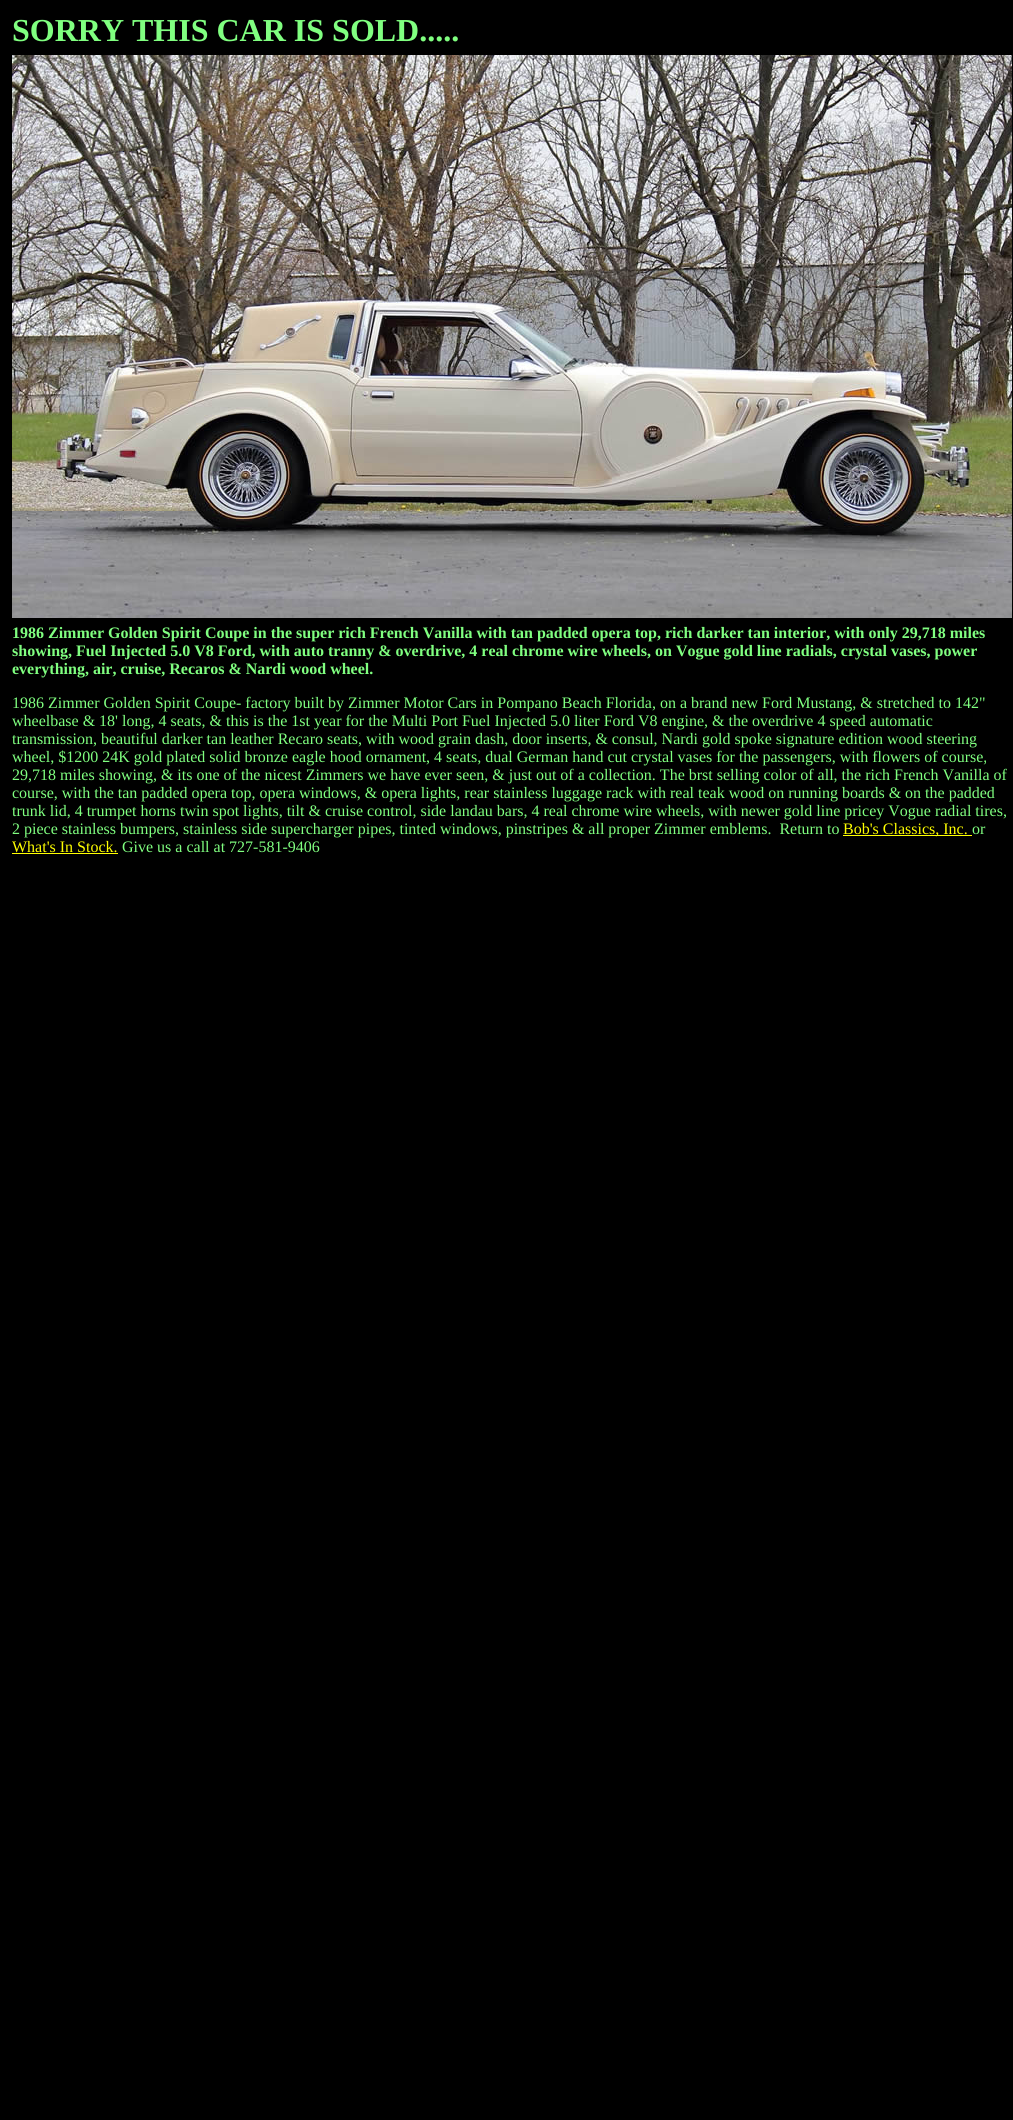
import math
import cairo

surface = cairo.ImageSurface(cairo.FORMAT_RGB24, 1013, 2120)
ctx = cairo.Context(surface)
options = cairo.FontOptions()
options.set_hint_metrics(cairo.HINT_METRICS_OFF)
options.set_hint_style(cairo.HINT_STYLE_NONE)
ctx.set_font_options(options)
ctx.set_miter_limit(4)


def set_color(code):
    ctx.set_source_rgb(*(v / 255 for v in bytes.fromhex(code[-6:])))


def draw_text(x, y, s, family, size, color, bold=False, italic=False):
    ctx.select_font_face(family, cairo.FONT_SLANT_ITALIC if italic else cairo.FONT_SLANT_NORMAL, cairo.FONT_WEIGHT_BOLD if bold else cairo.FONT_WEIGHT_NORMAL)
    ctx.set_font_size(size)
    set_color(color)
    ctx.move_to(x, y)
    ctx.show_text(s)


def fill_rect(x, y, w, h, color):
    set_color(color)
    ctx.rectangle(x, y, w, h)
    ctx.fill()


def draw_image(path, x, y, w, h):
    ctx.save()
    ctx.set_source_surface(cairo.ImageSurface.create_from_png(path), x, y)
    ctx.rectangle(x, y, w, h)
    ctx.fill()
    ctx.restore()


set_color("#000000")
ctx.paint()
draw_text(12, 41, "SORRY THIS CAR IS SOLD.....", "Liberation Serif", 32, "#80ff80", bold=True)
draw_image("assets/img1.png", 12, 55, 1000, 563)
draw_text(12, 638, "1986 Zimmer Golden Spirit Coupe in the super rich French Vanilla with tan padded opera top, rich darker tan interior, with only 29,718 miles", "Liberation Serif", 16, "#80ff80", bold=True)
draw_text(12, 656, "showing, Fuel Injected 5.0 V8 Ford, with auto tranny & overdrive, 4 real chrome wire wheels, on Vogue gold line radials, crystal vases, power", "Liberation Serif", 16, "#80ff80", bold=True)
draw_text(12, 674, "everything, air, cruise, Recaros & Nardi wood wheel.", "Liberation Serif", 16, "#80ff80", bold=True)
draw_text(12, 708, "1986 Zimmer Golden Spirit Coupe- factory built by Zimmer Motor Cars in Pompano Beach Florida, on a brand new Ford Mustang, & stretched to 142\"", "Liberation Serif", 16, "#80ff80")
draw_text(12, 726, "wheelbase & 18' long, 4 seats, & this is the 1st year for the Multi Port Fuel Injected 5.0 liter Ford V8 engine, & the overdrive 4 speed automatic", "Liberation Serif", 16, "#80ff80")
draw_text(12, 744, "transmission, beautiful darker tan leather Recaro seats, with wood grain dash, door inserts, & consul, Nardi gold spoke signature edition wood steering", "Liberation Serif", 16, "#80ff80")
draw_text(12, 762, "wheel, $1200 24K gold plated solid bronze eagle hood ornament, 4 seats, dual German hand cut crystal vases for the passengers, with flowers of course,", "Liberation Serif", 16, "#80ff80")
draw_text(12, 780, "29,718 miles showing, & its one of the nicest Zimmers we have ever seen, & just out of a collection. The brst selling color of all, the rich French Vanilla of", "Liberation Serif", 16, "#80ff80")
draw_text(12, 798, "course, with the tan padded opera top, opera windows, & opera lights, rear stainless luggage rack with real teak wood on running boards & on the padded", "Liberation Serif", 16, "#80ff80")
draw_text(12, 816, "trunk lid, 4 trumpet horns twin spot lights, tilt & cruise control, side landau bars, 4 real chrome wire wheels, with newer gold line pricey Vogue radial tires,", "Liberation Serif", 16, "#80ff80")
draw_text(12, 834, "2 piece stainless bumpers, stainless side supercharger pipes, tinted windows, pinstripes & all proper Zimmer emblems.  Return to", "Liberation Serif", 16, "#80ff80")
fill_rect(843, 835, 129, 1, "#ffff00")
draw_text(843, 834, "Bob's Classics, Inc.", "Liberation Serif", 16, "#ffff00")
draw_text(972, 834, "or", "Liberation Serif", 16, "#80ff80")
draw_text(12, 852, "What's In Stock.", "Liberation Serif", 16, "#ffff00")
fill_rect(12, 853, 106, 1, "#ffff00")
draw_text(122, 852, "Give us a call at 727-581-9406", "Liberation Serif", 16, "#80ff80")
surface.write_to_png("output.png")
